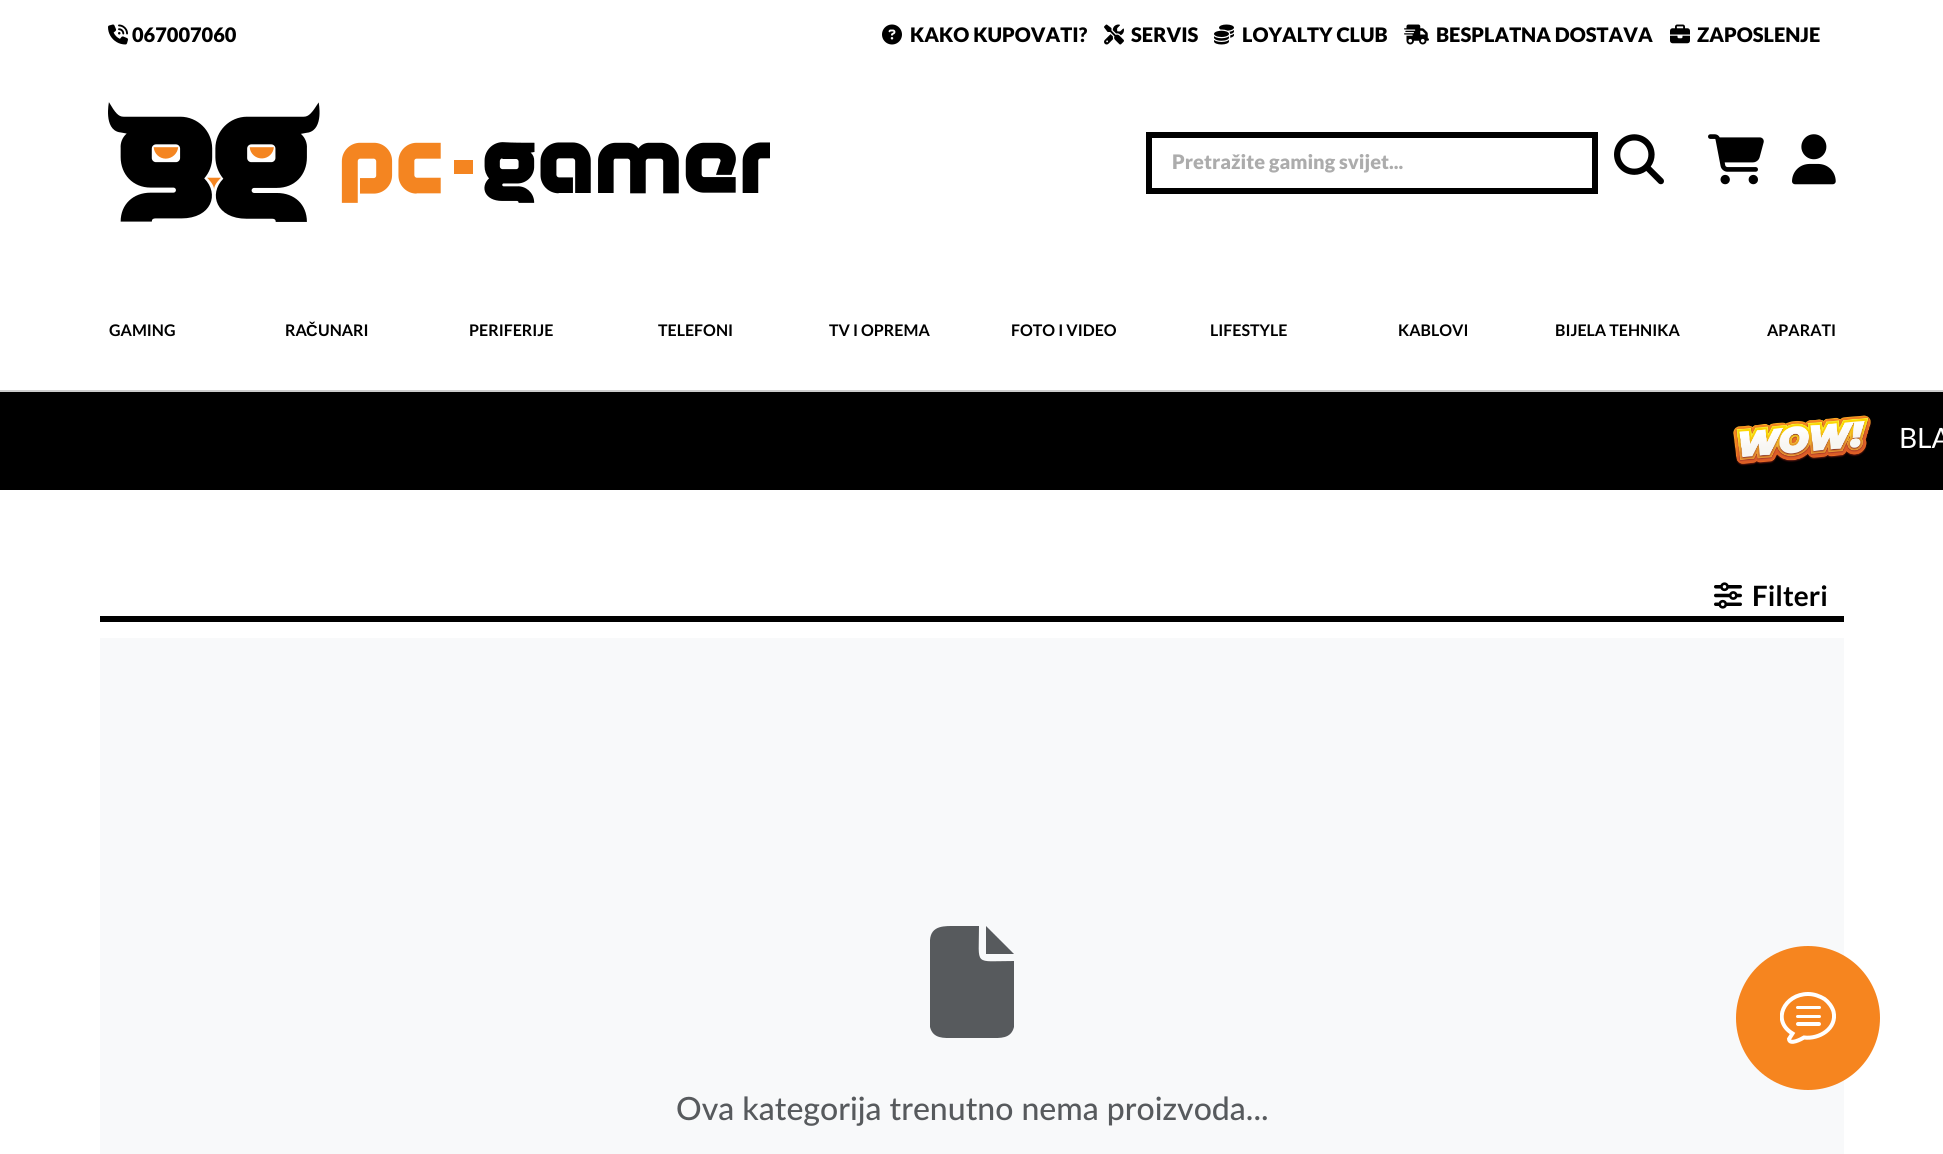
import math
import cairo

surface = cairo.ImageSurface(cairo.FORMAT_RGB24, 1943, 1154)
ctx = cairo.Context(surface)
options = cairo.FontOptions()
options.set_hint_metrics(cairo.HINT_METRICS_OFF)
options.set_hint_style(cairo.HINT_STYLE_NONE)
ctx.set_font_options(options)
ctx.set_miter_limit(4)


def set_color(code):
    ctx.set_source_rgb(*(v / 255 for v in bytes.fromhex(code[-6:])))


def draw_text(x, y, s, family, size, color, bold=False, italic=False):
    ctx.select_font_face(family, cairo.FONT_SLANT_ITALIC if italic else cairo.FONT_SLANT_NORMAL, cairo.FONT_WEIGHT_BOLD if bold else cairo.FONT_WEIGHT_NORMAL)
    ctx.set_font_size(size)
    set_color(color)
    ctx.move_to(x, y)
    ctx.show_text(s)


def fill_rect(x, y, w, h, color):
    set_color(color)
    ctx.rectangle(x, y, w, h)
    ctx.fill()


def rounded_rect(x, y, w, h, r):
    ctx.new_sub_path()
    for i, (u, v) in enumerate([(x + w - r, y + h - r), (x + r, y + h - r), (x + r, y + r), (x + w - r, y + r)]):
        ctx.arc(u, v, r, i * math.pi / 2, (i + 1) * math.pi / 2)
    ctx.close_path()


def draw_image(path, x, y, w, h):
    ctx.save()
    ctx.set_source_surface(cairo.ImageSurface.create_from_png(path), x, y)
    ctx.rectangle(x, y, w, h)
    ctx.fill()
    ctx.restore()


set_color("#ffffff")
ctx.paint()
draw_image("assets/img1.png", 108, 24, 20, 21)
draw_text(132, 42, "067007060", "Lato Black", 20, "#000000")
draw_image("assets/img2.png", 882, 24, 20, 21)
draw_text(910, 42, "KAKO KUPOVATI?", "Lato Black", 20, "#000000")
draw_image("assets/img3.png", 1104, 24, 20, 21)
draw_text(1131, 42, "SERVIS", "Lato Black", 20, "#000000")
draw_image("assets/img4.png", 1214, 24, 20, 21)
draw_text(1242, 42, "LOYALTY CLUB", "Lato Black", 20, "#000000")
draw_image("assets/img5.png", 1404, 24, 25, 21)
draw_text(1436, 42, "BESPLATNA DOSTAVA", "Lato Black", 20, "#000000")
draw_image("assets/img6.png", 1670, 24, 20, 20)
draw_text(1697, 42, "ZAPOSLENJE", "Lato Black", 20, "#000000")
draw_image("assets/img7.png", 108, 102, 662, 120)
ctx.rectangle(1149, 135, 446, 56)
ctx.set_line_width(6)
ctx.stroke()
draw_text(1172, 169, "Pretražite gaming svijet...", "Lato Black", 20, "#acacac")
draw_image("assets/img8.png", 1614, 134, 50, 51)
draw_image("assets/img9.png", 1708, 134, 56, 51)
draw_image("assets/img10.png", 1792, 134, 44, 51)
fill_rect(0, 390, 1943, 2, "#cccccc")
draw_text(109, 336, "GAMING", "Lato", 16, "#000000", bold=True)
draw_text(285, 336, "RA", "Lato", 16, "#000000", bold=True)
draw_text(306, 336, "Č", "Liberation Sans", 16, "#000000", bold=True)
draw_text(318, 336, "UNARI", "Lato", 16, "#000000", bold=True)
draw_text(469, 336, "PERIFERIJE", "Lato", 16, "#000000", bold=True)
draw_text(658, 336, "TELEFONI", "Lato", 16, "#000000", bold=True)
draw_text(829, 336, "TV I OPREMA", "Lato", 16, "#000000", bold=True)
draw_text(1011, 336, "FOTO I VIDEO", "Lato", 16, "#000000", bold=True)
draw_text(1210, 336, "LIFESTYLE", "Lato", 16, "#000000", bold=True)
draw_text(1398, 336, "KABLOVI", "Lato", 16, "#000000", bold=True)
draw_text(1555, 336, "BIJELA TEHNIKA", "Lato", 16, "#000000", bold=True)
draw_text(1767, 336, "APARATI", "Lato", 16, "#000000", bold=True)
fill_rect(0, 392, 1943, 98, "#000000")
draw_image("assets/img11.png", 1733, 415, 139, 51)
draw_text(1899, 448, "BLA", "Lato", 28, "#ffffff")
fill_rect(100, 616, 1744, 6, "#000000")
draw_image("assets/img12.png", 1714, 582, 28, 27)
draw_text(1752, 606, "Filteri", "Lato", 28, "#000000", bold=True)
fill_rect(100, 638, 1744, 516, "#f8f9fa")
set_color("#575a5d")
ctx.new_path()
ctx.move_to(930, 940)
ctx.curve_to(931, 925, 945, 926, 956, 926)
ctx.line_to(979, 926)
ctx.curve_to(979, 967, 973, 961, 1014, 961)
ctx.line_to(1014, 1027)
ctx.curve_to(1011, 1039, 1000, 1038, 991, 1038)
ctx.line_to(953, 1038)
ctx.curve_to(944, 1038, 933, 1039, 930, 1027)
ctx.close_path()
ctx.move_to(1014, 954)
ctx.line_to(986, 954)
ctx.line_to(1014, 954)
ctx.line_to(986, 954)
ctx.line_to(986, 926)
ctx.close_path()
ctx.fill()
draw_text(676, 1120, "Ova kategorija trenutno nema proizvoda...", "Lato Medium", 32, "#575a5d")
set_color("#f6851f")
ctx.new_path()
ctx.arc(1808, 1018, 72, 0, 2 * math.pi)
ctx.fill()
ctx.save()
ctx.rectangle(1780, 992, 56, 52)
ctx.clip()
ctx.new_path()
ctx.move_to(1808, 994)
ctx.curve_to(1814, 994, 1819.5, 996, 1824.5, 999)
ctx.curve_to(1828.5, 1002, 1832, 1006.5, 1833.5, 1011.5)
ctx.curve_to(1837.5, 1028.5, 1819, 1039.5, 1804, 1037.5)
ctx.curve_to(1801.5, 1039, 1789.5, 1045.5, 1789, 1039)
ctx.line_to(1792.5, 1033.5)
ctx.curve_to(1771, 1020.5, 1784.5, 994, 1808, 994)
ctx.close_path()
set_color("#ffffff")
ctx.set_line_width(4)
ctx.stroke()
ctx.restore()
set_color("#ffffff")
rounded_rect(1796, 1006, 25, 3, 1.5)
ctx.fill()
rounded_rect(1796, 1015, 25, 3, 1.5)
ctx.fill()
rounded_rect(1796, 1022, 25, 4, 2)
ctx.fill()
surface.write_to_png("output.png")
